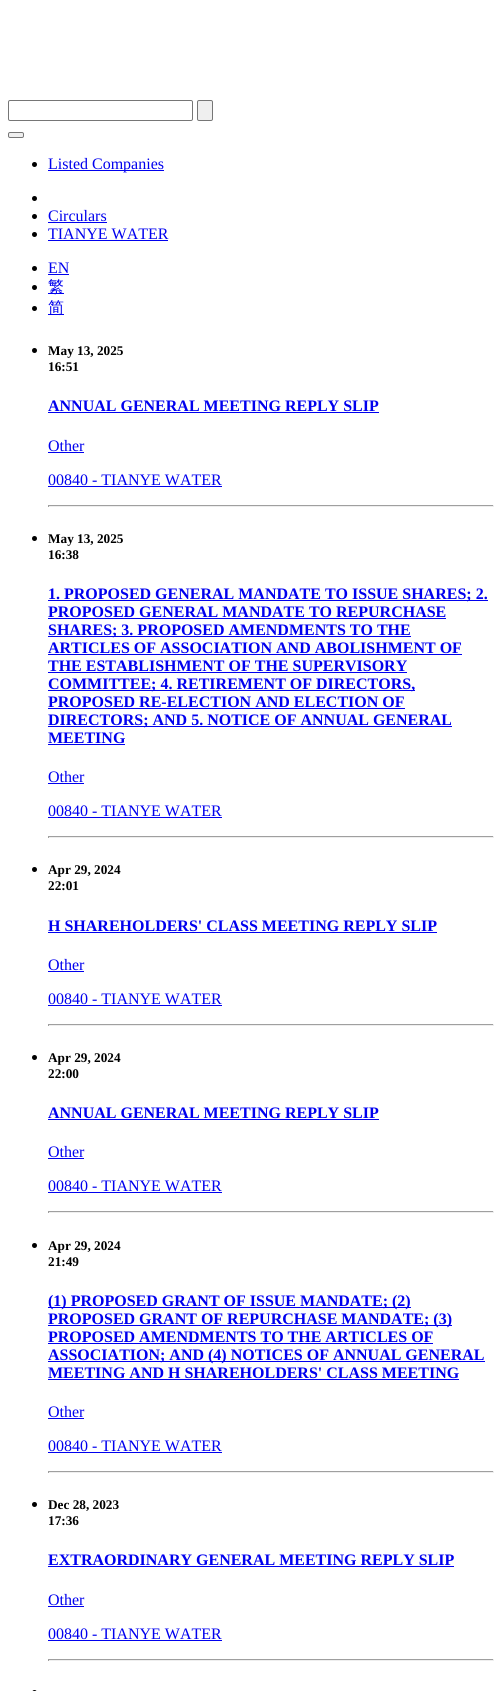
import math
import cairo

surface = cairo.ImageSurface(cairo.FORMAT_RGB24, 502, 1691)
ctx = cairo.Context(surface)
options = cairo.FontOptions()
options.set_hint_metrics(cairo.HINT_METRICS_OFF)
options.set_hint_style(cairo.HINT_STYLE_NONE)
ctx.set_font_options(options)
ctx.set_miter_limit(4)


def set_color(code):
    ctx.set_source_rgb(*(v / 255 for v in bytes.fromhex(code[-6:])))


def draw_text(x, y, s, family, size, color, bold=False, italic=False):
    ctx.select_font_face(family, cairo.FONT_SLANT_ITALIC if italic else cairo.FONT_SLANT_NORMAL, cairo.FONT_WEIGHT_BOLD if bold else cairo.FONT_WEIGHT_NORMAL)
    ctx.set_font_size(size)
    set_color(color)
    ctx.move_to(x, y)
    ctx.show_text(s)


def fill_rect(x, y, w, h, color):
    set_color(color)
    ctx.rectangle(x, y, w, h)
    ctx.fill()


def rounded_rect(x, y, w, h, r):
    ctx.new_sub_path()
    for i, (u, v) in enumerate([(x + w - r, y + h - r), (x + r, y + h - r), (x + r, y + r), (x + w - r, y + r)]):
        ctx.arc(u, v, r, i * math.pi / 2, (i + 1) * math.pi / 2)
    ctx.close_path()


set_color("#ffffff")
ctx.paint()
rounded_rect(8.5, 100.5, 184, 20, 1.5)
set_color("#767676")
ctx.set_line_width(1)
ctx.stroke()
set_color("#efefef")
rounded_rect(197.5, 100.5, 15, 20, 1.5)
ctx.fill_preserve()
set_color("#767676")
ctx.stroke()
set_color("#efefef")
rounded_rect(8.5, 132.5, 15, 5, 1.5)
ctx.fill_preserve()
set_color("#767676")
ctx.stroke()
set_color("#000000")
ctx.arc(34.5, 164.5, 2.5, 0, 2 * math.pi)
ctx.fill()
fill_rect(48, 170, 116, 1, "#0000ee")
draw_text(48, 169, "Listed Companies", "Liberation Serif", 16, "#0000ee")
set_color("#000000")
ctx.new_path()
ctx.arc(34.5, 198.5, 2.5, 0, 2 * math.pi)
ctx.fill()
ctx.arc(34.5, 216.5, 2.5, 0, 2 * math.pi)
ctx.fill()
draw_text(48, 221, "Circulars", "Liberation Serif", 16, "#0000ee")
fill_rect(48, 222, 59, 1, "#0000ee")
set_color("#000000")
ctx.new_path()
ctx.arc(34.5, 234.5, 2.5, 0, 2 * math.pi)
ctx.fill()
draw_text(48, 239, "TIANYE WATER", "Liberation Serif", 16, "#0000ee")
fill_rect(48, 240, 120, 1, "#0000ee")
set_color("#000000")
ctx.new_path()
ctx.arc(34.5, 268.5, 2.5, 0, 2 * math.pi)
ctx.fill()
draw_text(48, 273, "EN", "Liberation Serif", 16, "#0000ee")
fill_rect(48, 274, 21, 1, "#0000ee")
set_color("#000000")
ctx.new_path()
ctx.arc(34.5, 287.5, 2.5, 0, 2 * math.pi)
ctx.fill()
fill_rect(48, 293, 16, 1, "#0000ee")
draw_text(48, 292, "繁", "WenQuanYi Zen Hei Medium", 16, "#0000ee")
set_color("#000000")
ctx.new_path()
ctx.arc(34.5, 308.5, 2.5, 0, 2 * math.pi)
ctx.fill()
fill_rect(48, 314, 16, 1, "#0000ee")
draw_text(48, 313, "简", "WenQuanYi Zen Hei Medium", 16, "#0000ee")
set_color("#000000")
ctx.new_path()
ctx.arc(34.5, 350.5, 2.5, 0, 2 * math.pi)
ctx.fill()
draw_text(48, 355, "May 13, 2025", "Liberation Serif", 13.25, "#000000", bold=True)
draw_text(48, 371, "16:51", "Liberation Serif", 13.25, "#000000", bold=True)
draw_text(48, 411, "ANNUAL GENERAL MEETING REPLY SLIP", "Liberation Serif", 16, "#0000ee", bold=True)
fill_rect(48, 412, 331, 1, "#0000ee")
draw_text(48, 451, "Other", "Liberation Serif", 16, "#0000ee")
fill_rect(48, 452, 36, 1, "#0000ee")
draw_text(48, 485, "00840 - TIANYE WATER", "Liberation Serif", 16, "#0000ee")
fill_rect(48, 486, 174, 1, "#0000ee")
fill_rect(48, 505, 446, 1, "#9f9f9f")
fill_rect(493, 505, 1, 2, "#eeeeee")
fill_rect(48, 506, 446, 1, "#eeeeee")
fill_rect(48, 505, 1, 2, "#9f9f9f")
set_color("#000000")
ctx.new_path()
ctx.arc(34.5, 538.5, 2.5, 0, 2 * math.pi)
ctx.fill()
draw_text(48, 543, "May 13, 2025", "Liberation Serif", 13.25, "#000000", bold=True)
draw_text(48, 559, "16:38", "Liberation Serif", 13.25, "#000000", bold=True)
fill_rect(48, 600, 440, 1, "#0000ee")
draw_text(48, 599, "1. PROPOSED GENERAL MANDATE TO ISSUE SHARES; 2.", "Liberation Serif", 16, "#0000ee", bold=True)
draw_text(48, 617, "PROPOSED GENERAL MANDATE TO REPURCHASE", "Liberation Serif", 16, "#0000ee", bold=True)
fill_rect(48, 618, 398, 1, "#0000ee")
fill_rect(48, 636, 363, 1, "#0000ee")
draw_text(48, 635, "SHARES; 3. PROPOSED AMENDMENTS TO THE", "Liberation Serif", 16, "#0000ee", bold=True)
draw_text(48, 653, "ARTICLES OF ASSOCIATION AND ABOLISHMENT OF", "Liberation Serif", 16, "#0000ee", bold=True)
fill_rect(48, 654, 414, 1, "#0000ee")
draw_text(48, 671, "THE ESTABLISHMENT OF THE SUPERVISORY", "Liberation Serif", 16, "#0000ee", bold=True)
fill_rect(48, 672, 359, 1, "#0000ee")
fill_rect(48, 690, 367, 1, "#0000ee")
draw_text(48, 689, "COMMITTEE; 4. RETIREMENT OF DIRECTORS,", "Liberation Serif", 16, "#0000ee", bold=True)
draw_text(48, 707, "PROPOSED RE-ELECTION AND ELECTION OF", "Liberation Serif", 16, "#0000ee", bold=True)
fill_rect(48, 708, 357, 1, "#0000ee")
fill_rect(48, 726, 404, 1, "#0000ee")
draw_text(48, 725, "DIRECTORS; AND 5. NOTICE OF ANNUAL GENERAL", "Liberation Serif", 16, "#0000ee", bold=True)
draw_text(48, 743, "MEETING", "Liberation Serif", 16, "#0000ee", bold=True)
fill_rect(48, 744, 77, 1, "#0000ee")
draw_text(48, 782, "Other", "Liberation Serif", 16, "#0000ee")
fill_rect(48, 783, 36, 1, "#0000ee")
draw_text(48, 816, "00840 - TIANYE WATER", "Liberation Serif", 16, "#0000ee")
fill_rect(48, 817, 174, 1, "#0000ee")
fill_rect(48, 836, 446, 1, "#9f9f9f")
fill_rect(493, 836, 1, 2, "#eeeeee")
fill_rect(48, 837, 446, 1, "#eeeeee")
fill_rect(48, 836, 1, 2, "#9f9f9f")
set_color("#000000")
ctx.new_path()
ctx.arc(34.5, 869.5, 2.5, 0, 2 * math.pi)
ctx.fill()
draw_text(48, 874, "Apr 29, 2024", "Liberation Serif", 13.25, "#000000", bold=True)
draw_text(48, 890, "22:01", "Liberation Serif", 13.25, "#000000", bold=True)
draw_text(48, 931, "H SHAREHOLDERS' CLASS MEETING REPLY SLIP", "Liberation Serif", 16, "#0000ee", bold=True)
fill_rect(48, 932, 389, 1, "#0000ee")
draw_text(48, 970, "Other", "Liberation Serif", 16, "#0000ee")
fill_rect(48, 971, 36, 1, "#0000ee")
draw_text(48, 1004, "00840 - TIANYE WATER", "Liberation Serif", 16, "#0000ee")
fill_rect(48, 1005, 174, 1, "#0000ee")
fill_rect(48, 1024, 446, 1, "#9f9f9f")
fill_rect(493, 1024, 1, 2, "#eeeeee")
fill_rect(48, 1025, 446, 1, "#eeeeee")
fill_rect(48, 1024, 1, 2, "#9f9f9f")
set_color("#000000")
ctx.new_path()
ctx.arc(34.5, 1057.5, 2.5, 0, 2 * math.pi)
ctx.fill()
draw_text(48, 1062, "Apr 29, 2024", "Liberation Serif", 13.25, "#000000", bold=True)
draw_text(48, 1078, "22:00", "Liberation Serif", 13.25, "#000000", bold=True)
draw_text(48, 1118, "ANNUAL GENERAL MEETING REPLY SLIP", "Liberation Serif", 16, "#0000ee", bold=True)
fill_rect(48, 1119, 331, 1, "#0000ee")
draw_text(48, 1157, "Other", "Liberation Serif", 16, "#0000ee")
fill_rect(48, 1158, 36, 1, "#0000ee")
draw_text(48, 1191, "00840 - TIANYE WATER", "Liberation Serif", 16, "#0000ee")
fill_rect(48, 1192, 174, 1, "#0000ee")
fill_rect(48, 1211, 446, 1, "#9f9f9f")
fill_rect(493, 1211, 1, 2, "#eeeeee")
fill_rect(48, 1212, 446, 1, "#eeeeee")
fill_rect(48, 1211, 1, 2, "#9f9f9f")
set_color("#000000")
ctx.new_path()
ctx.arc(34.5, 1245.5, 2.5, 0, 2 * math.pi)
ctx.fill()
draw_text(48, 1250, "Apr 29, 2024", "Liberation Serif", 13.25, "#000000", bold=True)
draw_text(48, 1266, "21:49", "Liberation Serif", 13.25, "#000000", bold=True)
fill_rect(48, 1307, 363, 1, "#0000ee")
draw_text(48, 1306, "(1) PROPOSED GRANT OF ISSUE MANDATE; (2)", "Liberation Serif", 16, "#0000ee", bold=True)
fill_rect(48, 1325, 404, 1, "#0000ee")
draw_text(48, 1324, "PROPOSED GRANT OF REPURCHASE MANDATE; (3)", "Liberation Serif", 16, "#0000ee", bold=True)
draw_text(48, 1342, "PROPOSED AMENDMENTS TO THE ARTICLES OF", "Liberation Serif", 16, "#0000ee", bold=True)
fill_rect(48, 1343, 385, 1, "#0000ee")
fill_rect(48, 1361, 437, 1, "#0000ee")
draw_text(48, 1360, "ASSOCIATION; AND (4) NOTICES OF ANNUAL GENERAL", "Liberation Serif", 16, "#0000ee", bold=True)
draw_text(48, 1378, "MEETING AND H SHAREHOLDERS' CLASS MEETING", "Liberation Serif", 16, "#0000ee", bold=True)
fill_rect(48, 1379, 411, 1, "#0000ee")
draw_text(48, 1417, "Other", "Liberation Serif", 16, "#0000ee")
fill_rect(48, 1418, 36, 1, "#0000ee")
draw_text(48, 1451, "00840 - TIANYE WATER", "Liberation Serif", 16, "#0000ee")
fill_rect(48, 1452, 174, 1, "#0000ee")
fill_rect(48, 1471, 446, 1, "#9f9f9f")
fill_rect(493, 1471, 1, 2, "#eeeeee")
fill_rect(48, 1472, 446, 1, "#eeeeee")
fill_rect(48, 1471, 1, 2, "#9f9f9f")
set_color("#000000")
ctx.new_path()
ctx.arc(34.5, 1504.5, 2.5, 0, 2 * math.pi)
ctx.fill()
draw_text(48, 1509, "Dec 28, 2023", "Liberation Serif", 13.25, "#000000", bold=True)
draw_text(48, 1525, "17:36", "Liberation Serif", 13.25, "#000000", bold=True)
draw_text(48, 1565, "EXTRAORDINARY GENERAL MEETING REPLY SLIP", "Liberation Serif", 16, "#0000ee", bold=True)
fill_rect(48, 1566, 406, 1, "#0000ee")
draw_text(48, 1605, "Other", "Liberation Serif", 16, "#0000ee")
fill_rect(48, 1606, 36, 1, "#0000ee")
draw_text(48, 1639, "00840 - TIANYE WATER", "Liberation Serif", 16, "#0000ee")
fill_rect(48, 1640, 174, 1, "#0000ee")
fill_rect(48, 1659, 446, 1, "#9f9f9f")
fill_rect(493, 1659, 1, 2, "#eeeeee")
fill_rect(48, 1660, 446, 1, "#eeeeee")
fill_rect(48, 1659, 1, 2, "#9f9f9f")
set_color("#000000")
rounded_rect(32, 1690, 5, 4, 2.5)
ctx.fill()
surface.write_to_png("output.png")
